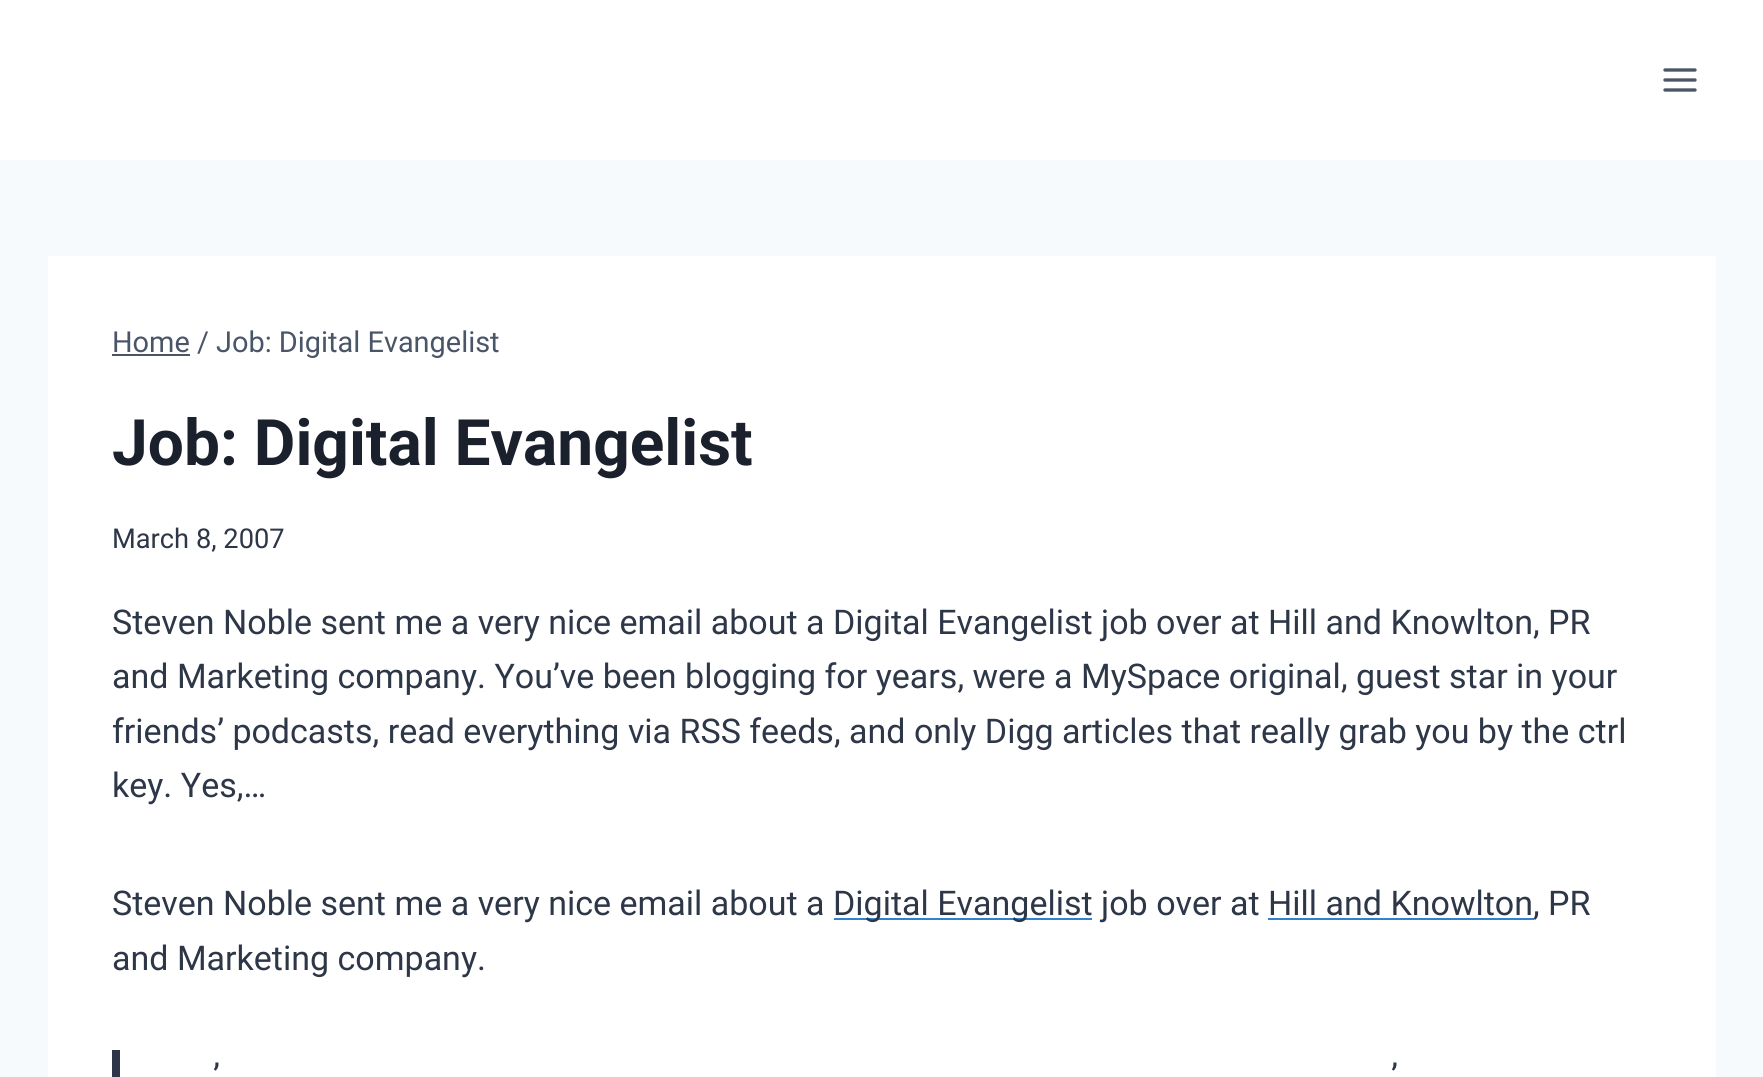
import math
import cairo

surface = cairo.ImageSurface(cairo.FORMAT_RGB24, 1763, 1077)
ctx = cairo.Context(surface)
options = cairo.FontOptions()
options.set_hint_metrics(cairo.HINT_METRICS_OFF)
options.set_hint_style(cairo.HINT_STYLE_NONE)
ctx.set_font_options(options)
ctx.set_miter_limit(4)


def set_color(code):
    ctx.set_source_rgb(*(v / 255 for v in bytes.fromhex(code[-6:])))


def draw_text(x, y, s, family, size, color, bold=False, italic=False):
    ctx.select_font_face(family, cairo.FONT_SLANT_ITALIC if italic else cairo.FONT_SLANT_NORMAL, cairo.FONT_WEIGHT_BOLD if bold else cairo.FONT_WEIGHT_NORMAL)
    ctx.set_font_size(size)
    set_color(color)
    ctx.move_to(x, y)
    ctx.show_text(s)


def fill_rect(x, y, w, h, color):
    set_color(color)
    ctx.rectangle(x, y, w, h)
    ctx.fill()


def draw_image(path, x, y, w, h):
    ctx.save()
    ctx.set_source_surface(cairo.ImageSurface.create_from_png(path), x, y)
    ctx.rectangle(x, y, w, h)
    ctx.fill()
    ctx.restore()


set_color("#f7fafc")
ctx.paint()
fill_rect(0, 0, 1763, 160, "#ffffff")
draw_image("assets/img1.png", 1663, 68, 34, 24)
fill_rect(48, 256, 1668, 821, "#ffffff")
fill_rect(112, 354, 78, 2, "#4a5568")
draw_text(112, 352, "Home / Job: Digital Evangelist", "Roboto", 28.9, "#4a5568")
draw_text(112, 465, "Job: Digital Evangelist", "Roboto", 64, "#1a202c", bold=True)
draw_text(112, 548, "March 8, 2007", "Roboto", 27.25, "#2d3748")
draw_text(112, 634, "Steven Noble sent me a very nice email about a Digital Evangelist job over at Hill and Knowlton, PR", "Roboto", 34, "#2d3748")
draw_text(112, 688, "and Marketing company. You’ve been blogging for years, were a MySpace original, guest star in your", "Roboto", 34, "#2d3748")
draw_text(112, 743, "friends’ podcasts, read everything via RSS feeds, and only Digg articles that really grab you by the ctrl", "Roboto", 34, "#2d3748")
draw_text(112, 797, "key. Yes,…", "Roboto", 34, "#2d3748")
draw_text(112, 915, "Steven Noble sent me a very nice email about a", "Roboto", 34, "#2d3748")
fill_rect(834, 918, 258, 2, "#3182ce")
draw_text(833, 915, "Digital Evangelist job over at Hill and Knowlton", "Roboto", 34, "#2d3748")
fill_rect(1268, 918, 266, 2, "#3182ce")
draw_text(1533, 915, ", PR", "Roboto", 34, "#2d3748")
draw_text(112, 970, "and Marketing company.", "Roboto", 34, "#2d3748")
fill_rect(112, 1050, 8, 27, "#2d3748")
draw_text(213, 1088, "’", "Roboto", 34, "#2d3748")
draw_text(1391, 1088, "’", "Roboto", 34, "#2d3748")
surface.write_to_png("output.png")
